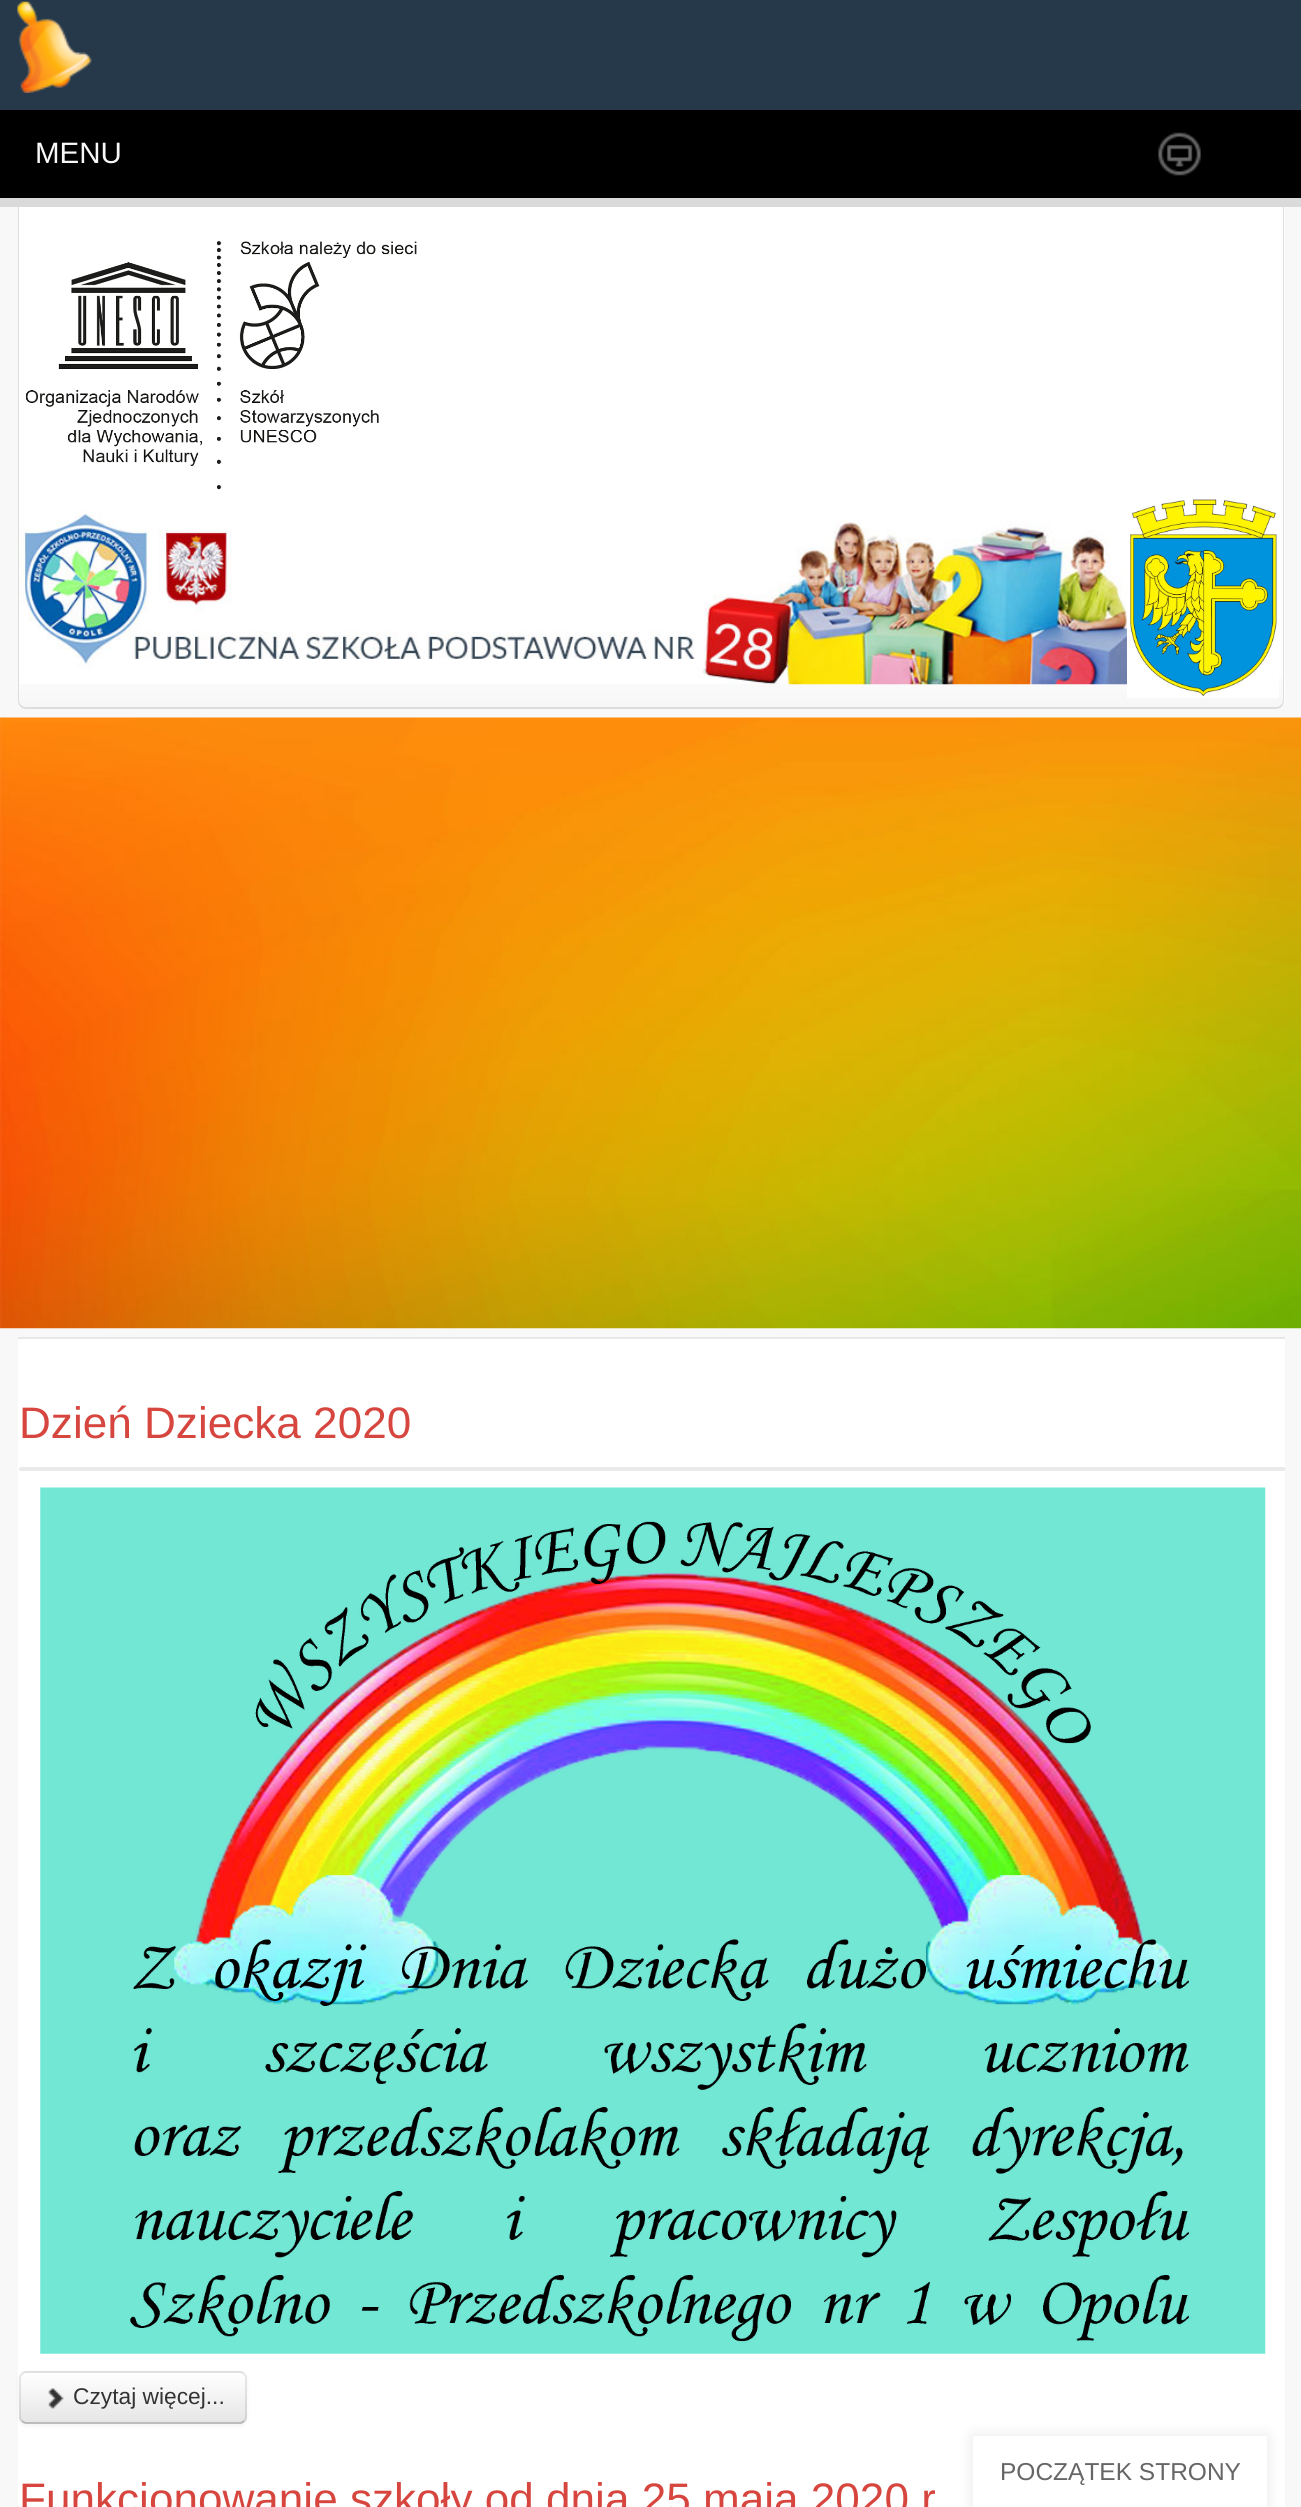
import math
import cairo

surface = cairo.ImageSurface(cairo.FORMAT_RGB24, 1301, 2507)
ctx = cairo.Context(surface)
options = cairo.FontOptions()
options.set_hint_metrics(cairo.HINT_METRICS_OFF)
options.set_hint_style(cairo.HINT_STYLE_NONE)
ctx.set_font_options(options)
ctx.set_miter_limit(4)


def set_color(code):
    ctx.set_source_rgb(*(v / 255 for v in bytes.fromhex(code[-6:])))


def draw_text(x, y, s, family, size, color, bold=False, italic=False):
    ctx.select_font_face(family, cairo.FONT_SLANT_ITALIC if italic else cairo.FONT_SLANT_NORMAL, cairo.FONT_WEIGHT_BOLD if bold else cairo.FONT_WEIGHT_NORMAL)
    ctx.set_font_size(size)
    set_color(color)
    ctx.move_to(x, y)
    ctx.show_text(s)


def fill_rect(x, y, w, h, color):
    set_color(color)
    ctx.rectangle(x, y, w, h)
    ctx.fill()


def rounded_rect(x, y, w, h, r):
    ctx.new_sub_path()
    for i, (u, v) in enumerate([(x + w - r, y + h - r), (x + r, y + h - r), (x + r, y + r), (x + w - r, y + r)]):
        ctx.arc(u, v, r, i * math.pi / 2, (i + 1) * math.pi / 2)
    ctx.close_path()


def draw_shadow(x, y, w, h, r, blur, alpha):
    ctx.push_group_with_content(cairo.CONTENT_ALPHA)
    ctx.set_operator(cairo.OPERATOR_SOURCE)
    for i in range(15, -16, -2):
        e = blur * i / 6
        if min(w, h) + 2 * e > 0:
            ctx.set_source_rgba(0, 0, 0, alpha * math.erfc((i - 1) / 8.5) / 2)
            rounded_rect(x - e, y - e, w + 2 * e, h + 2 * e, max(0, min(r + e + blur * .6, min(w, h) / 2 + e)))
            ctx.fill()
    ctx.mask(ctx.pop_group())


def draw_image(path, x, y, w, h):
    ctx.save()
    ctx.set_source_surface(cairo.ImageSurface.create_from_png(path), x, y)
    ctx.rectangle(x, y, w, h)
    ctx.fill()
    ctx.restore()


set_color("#f8f8f8")
ctx.paint()
fill_rect(0, 0, 1301, 110, "#26394b")
set_color("#ffffff")
ctx.new_path()
ctx.move_to(18, 207)
ctx.line_to(1285, 207)
ctx.line_to(1285, 700)
ctx.curve_to(1285, 705, 1281, 709, 1276, 709)
ctx.line_to(27, 709)
ctx.curve_to(22, 709, 18, 705, 18, 700)
ctx.close_path()
ctx.fill()
draw_image("assets/img3.png", 18, 677, 1266, 30)
set_color("#dddddd")
ctx.set_fill_rule(cairo.FILL_RULE_EVEN_ODD)
ctx.new_path()
ctx.move_to(18, 206)
ctx.line_to(1284, 206)
ctx.line_to(1284, 700)
ctx.curve_to(1284, 705, 1281, 709, 1276, 709)
ctx.line_to(26, 709)
ctx.curve_to(21, 709, 18, 705, 18, 700)
ctx.close_path()
ctx.move_to(19, 206)
ctx.line_to(1283, 206)
ctx.line_to(1283, 700)
ctx.curve_to(1283, 704, 1280, 707, 1276, 707)
ctx.line_to(26, 707)
ctx.curve_to(22, 707, 19, 704, 19, 700)
ctx.close_path()
ctx.fill()
fill_rect(0, 198, 1301, 9, "#dadada")
draw_image("assets/img1.png", 17, 1, 75, 92)
fill_rect(0, 110, 1301, 88, "#000000")
draw_text(35, 163, "MENU", "Liberation Sans", 29.5, "#f8f8f8")
draw_image("assets/img2.png", 1158, 132, 43, 44)
draw_image("assets/img4.png", 25, 241, 392, 249)
draw_image("assets/img5.png", 19, 511, 1108, 174)
draw_image("assets/img6.png", 1127, 499, 152, 199)
draw_image("assets/img7.png", 0, 717, 1301, 612)
fill_rect(18, 1339, 1267, 1168, "#ffffff")
fill_rect(18, 1337, 1267, 2, "#e8e8e8")
draw_text(19, 1438, "Dzień Dziecka 2020", "Liberation Sans", 44.1, "#d6463f")
ctx.save()
ctx.set_fill_rule(cairo.FILL_RULE_WINDING)
ctx.rectangle(18, 1337, 1267, 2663)
ctx.clip()
set_color("#eaeaea")
rounded_rect(19, 1467, 1267, 4, 2)
ctx.fill()
ctx.restore()
draw_image("assets/img8.png", 40, 1487, 1226, 867)
set_color("#000000")
draw_shadow(19, 2373, 228, 53, 7, 2, 0.05)
set_color("#f5f5f5")
rounded_rect(19, 2371, 228, 53, 7)
ctx.fill()
ctx.save()
ctx.set_fill_rule(cairo.FILL_RULE_WINDING)
rounded_rect(19, 2371, 228, 53, 7)
ctx.clip()
gradient = cairo.LinearGradient(133, 2373, 133, 2422)
gradient.add_color_stop_rgba(0, 1, 1, 1, 1)
gradient.add_color_stop_rgba(1, 0.902, 0.902, 0.902, 1)
ctx.set_source(gradient)
ctx.rectangle(19, 2373, 228, 49)
ctx.fill()
ctx.restore()
ctx.new_path()
ctx.move_to(244, 2421)
ctx.curve_to(243, 2422, 241.5, 2423, 240, 2423)
ctx.line_to(26.5, 2423)
ctx.curve_to(24.5, 2423, 23, 2422, 22, 2421)
set_color("#b3b3b3")
ctx.set_line_width(1.8)
ctx.stroke()
ctx.new_path()
ctx.move_to(22, 2421)
ctx.curve_to(21, 2420, 20, 2418.5, 20, 2417)
ctx.line_to(20, 2378)
ctx.curve_to(20, 2376.5, 21, 2375, 22, 2374)
ctx.curve_to(23, 2373, 24.5, 2372, 26, 2372)
ctx.line_to(240, 2372)
ctx.curve_to(241.5, 2372, 243, 2373, 244, 2374)
ctx.curve_to(245, 2375, 246, 2376.5, 246, 2378)
ctx.line_to(246, 2417)
ctx.curve_to(246, 2418.5, 245, 2420, 244, 2421)
ctx.set_source_rgba(0, 0, 0, 0.1)
ctx.stroke()
draw_image("assets/img9.png", 48, 2388, 16, 22)
draw_text(73, 2404, "Czytaj więcej...", "Liberation Sans", 22.75, "#333333")
draw_text(19, 2514, "Funkcjonowanie szkoły od dnia 25 maja 2020 r", "Liberation Sans", 44.1, "#d6463f")
ctx.save()
ctx.new_path()
ctx.move_to(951, 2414)
ctx.line_to(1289, 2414)
ctx.line_to(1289, 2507)
ctx.line_to(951, 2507)
ctx.close_path()
ctx.move_to(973, 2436)
ctx.line_to(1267, 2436)
ctx.line_to(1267, 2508)
ctx.line_to(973, 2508)
ctx.close_path()
ctx.clip()
set_color("#000000")
draw_shadow(973, 2436, 294, 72, 0, 7, 0.1)
ctx.restore()
draw_text(1000, 2480, "POCZĄTEK STRONY", "Liberation Sans", 24.5, "#666666")
surface.write_to_png("output.png")
